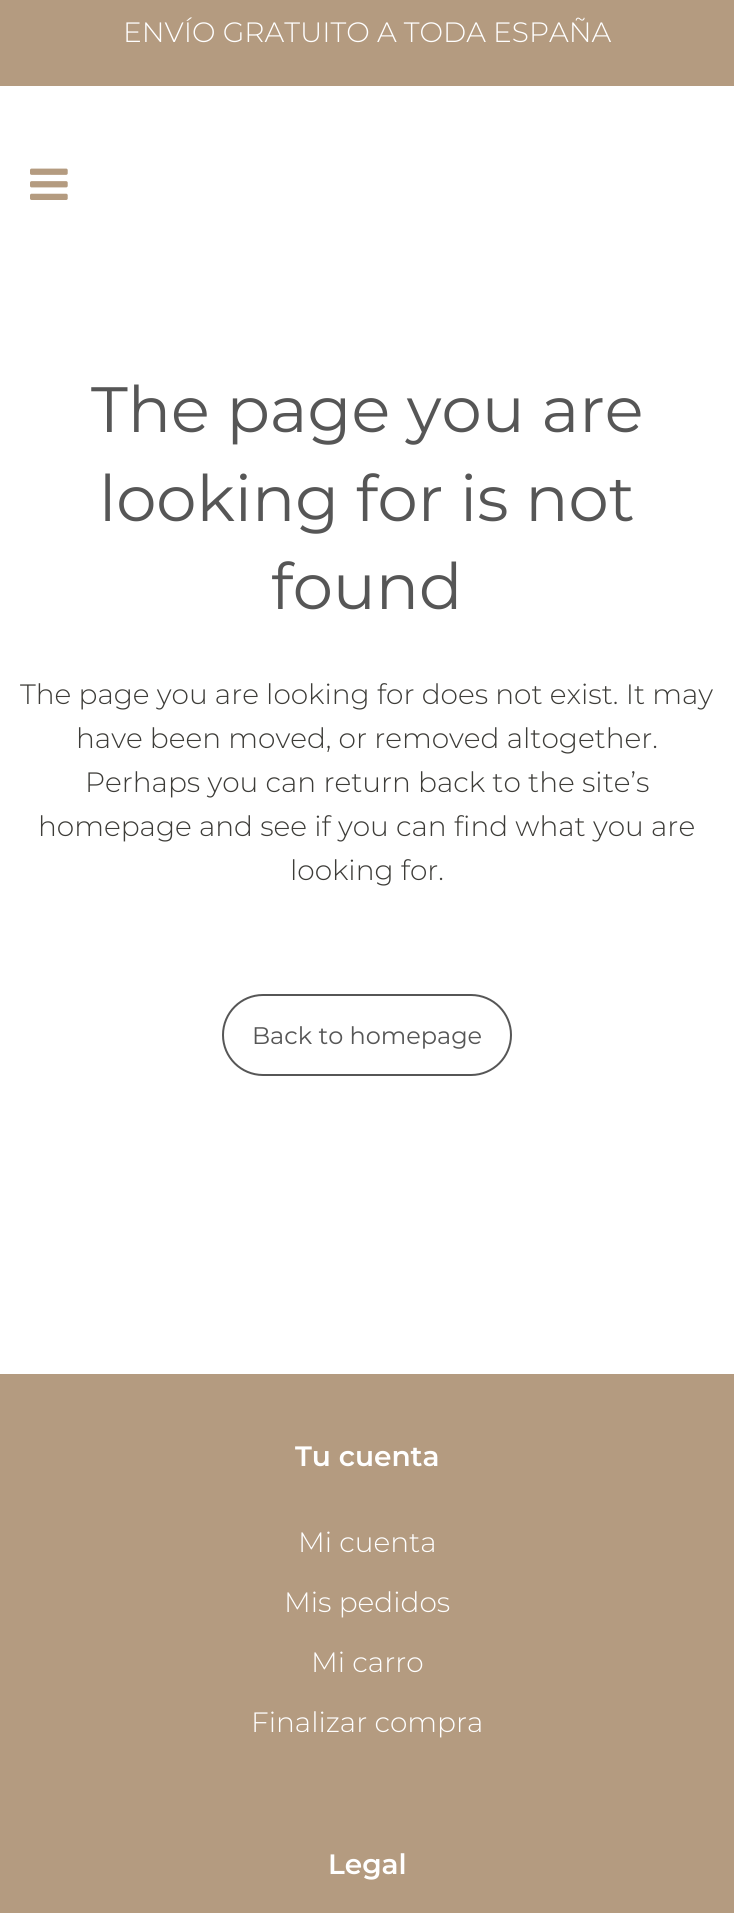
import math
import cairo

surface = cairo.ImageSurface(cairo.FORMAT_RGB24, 734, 1913)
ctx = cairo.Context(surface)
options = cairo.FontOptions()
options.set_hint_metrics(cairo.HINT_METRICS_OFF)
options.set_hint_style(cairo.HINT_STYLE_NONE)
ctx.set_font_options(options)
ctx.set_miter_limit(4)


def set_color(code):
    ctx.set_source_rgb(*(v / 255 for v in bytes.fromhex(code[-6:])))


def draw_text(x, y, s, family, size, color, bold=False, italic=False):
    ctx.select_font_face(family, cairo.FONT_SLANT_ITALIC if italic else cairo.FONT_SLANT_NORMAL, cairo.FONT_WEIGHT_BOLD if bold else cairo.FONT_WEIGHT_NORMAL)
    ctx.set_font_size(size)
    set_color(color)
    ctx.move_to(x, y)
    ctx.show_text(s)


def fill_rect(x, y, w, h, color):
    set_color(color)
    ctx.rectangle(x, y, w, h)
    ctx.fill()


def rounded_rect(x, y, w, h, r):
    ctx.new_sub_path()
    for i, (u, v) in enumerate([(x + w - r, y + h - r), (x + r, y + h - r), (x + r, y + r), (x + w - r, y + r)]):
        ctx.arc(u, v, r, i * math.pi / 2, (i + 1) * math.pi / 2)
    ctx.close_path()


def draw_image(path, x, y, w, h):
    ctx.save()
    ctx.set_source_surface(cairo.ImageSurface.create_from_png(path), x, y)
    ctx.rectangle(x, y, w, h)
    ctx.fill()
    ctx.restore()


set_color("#ffffff")
ctx.paint()
fill_rect(0, 0, 734, 86, "#b49b80")
draw_text(123, 42, "ENVÍO GRATUITO A TODA ESPAÑA", "Montserrat Light", 28, "#ffffff")
draw_image("assets/img1.png", 30, 168, 38, 32)
draw_text(91, 432, "The page you are", "Montserrat", 64, "#565656")
draw_text(99, 521, "looking for is not", "Montserrat", 64, "#565656")
draw_text(271, 609, "found", "Montserrat", 64, "#565656")
draw_text(20, 704, "The page you are looking for does not exist. It may", "Montserrat Light", 28, "#3d3c38")
draw_text(76, 748, "have been moved, or removed altogether.", "Montserrat Light", 28, "#3d3c38")
draw_text(85, 792, "Perhaps you can return back to the site’s", "Montserrat Light", 28, "#3d3c38")
draw_text(38, 836, "homepage and see if you can find what you are", "Montserrat Light", 28, "#3d3c38")
draw_text(290, 880, "looking for.", "Montserrat Light", 28, "#3d3c38")
rounded_rect(223, 995, 288, 80, 40)
set_color("#565656")
ctx.stroke()
draw_text(252, 1044, "Back to homepage", "Montserrat", 24, "#565656")
fill_rect(0, 1374, 734, 539, "#b49b80")
draw_text(295, 1466, "Tu cuenta", "Montserrat SemiBold", 28, "#ffffff")
draw_text(298, 1552, "Mi cuenta", "Montserrat Light", 28, "#ffffff")
draw_text(284, 1612, "Mis pedidos", "Montserrat Light", 28, "#ffffff")
draw_text(311, 1672, "Mi carro", "Montserrat Light", 28, "#ffffff")
draw_text(251, 1732, "Finalizar compra", "Montserrat Light", 28, "#ffffff")
draw_text(328, 1874, "Legal", "Montserrat SemiBold", 28, "#ffffff")
surface.write_to_png("output.png")
